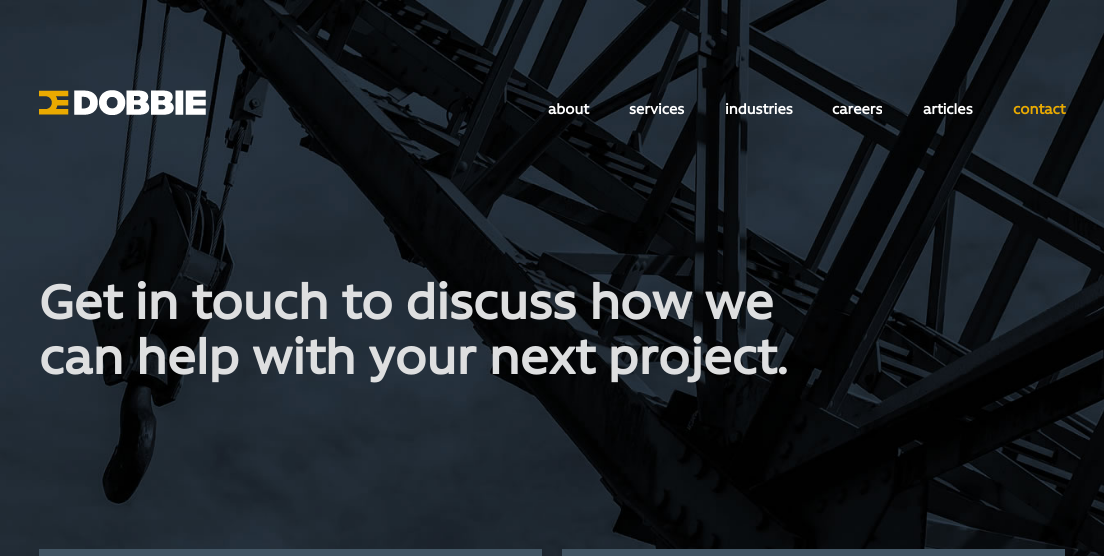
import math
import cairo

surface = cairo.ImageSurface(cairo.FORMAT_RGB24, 1104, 556)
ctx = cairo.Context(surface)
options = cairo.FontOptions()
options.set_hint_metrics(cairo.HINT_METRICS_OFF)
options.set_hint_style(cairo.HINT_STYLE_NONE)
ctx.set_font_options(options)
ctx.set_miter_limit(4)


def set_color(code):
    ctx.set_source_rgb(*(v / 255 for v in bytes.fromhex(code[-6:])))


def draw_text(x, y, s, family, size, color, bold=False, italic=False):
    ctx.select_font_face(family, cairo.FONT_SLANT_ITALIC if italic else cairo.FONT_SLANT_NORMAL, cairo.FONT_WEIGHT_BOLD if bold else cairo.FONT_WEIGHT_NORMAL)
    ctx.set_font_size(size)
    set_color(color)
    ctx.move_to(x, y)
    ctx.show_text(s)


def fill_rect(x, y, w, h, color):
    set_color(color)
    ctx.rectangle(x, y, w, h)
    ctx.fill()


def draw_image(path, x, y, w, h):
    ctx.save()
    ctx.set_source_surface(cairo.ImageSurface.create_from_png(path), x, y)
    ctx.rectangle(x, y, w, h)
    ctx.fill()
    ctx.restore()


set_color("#ffffff")
ctx.paint()
draw_image("assets/img2.png", 0, 0, 1104, 556)
draw_image("assets/img1.png", 39, 90, 167, 25)
draw_text(548, 114, "about", "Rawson", 16, "#ffffff", bold=True)
draw_text(629, 114, "services", "Rawson", 16, "#ffffff", bold=True)
draw_text(725, 114, "industries", "Rawson", 16, "#ffffff", bold=True)
draw_text(832, 114, "careers", "Rawson", 16, "#ffffff", bold=True)
draw_text(923, 114, "articles", "Rawson", 16, "#ffffff", bold=True)
draw_text(1013, 114, "contact", "Rawson", 16, "#eaaa00", bold=True)
draw_text(39, 319, "Get in touch to discuss how we", "Rawson", 55, "#dedfe0", bold=True)
draw_text(39, 374, "can help with your next project.", "Rawson", 55, "#dedfe0", bold=True)
fill_rect(39, 549, 503, 7, "#425563")
fill_rect(562, 549, 503, 7, "#425563")
surface.write_to_png("output.png")
